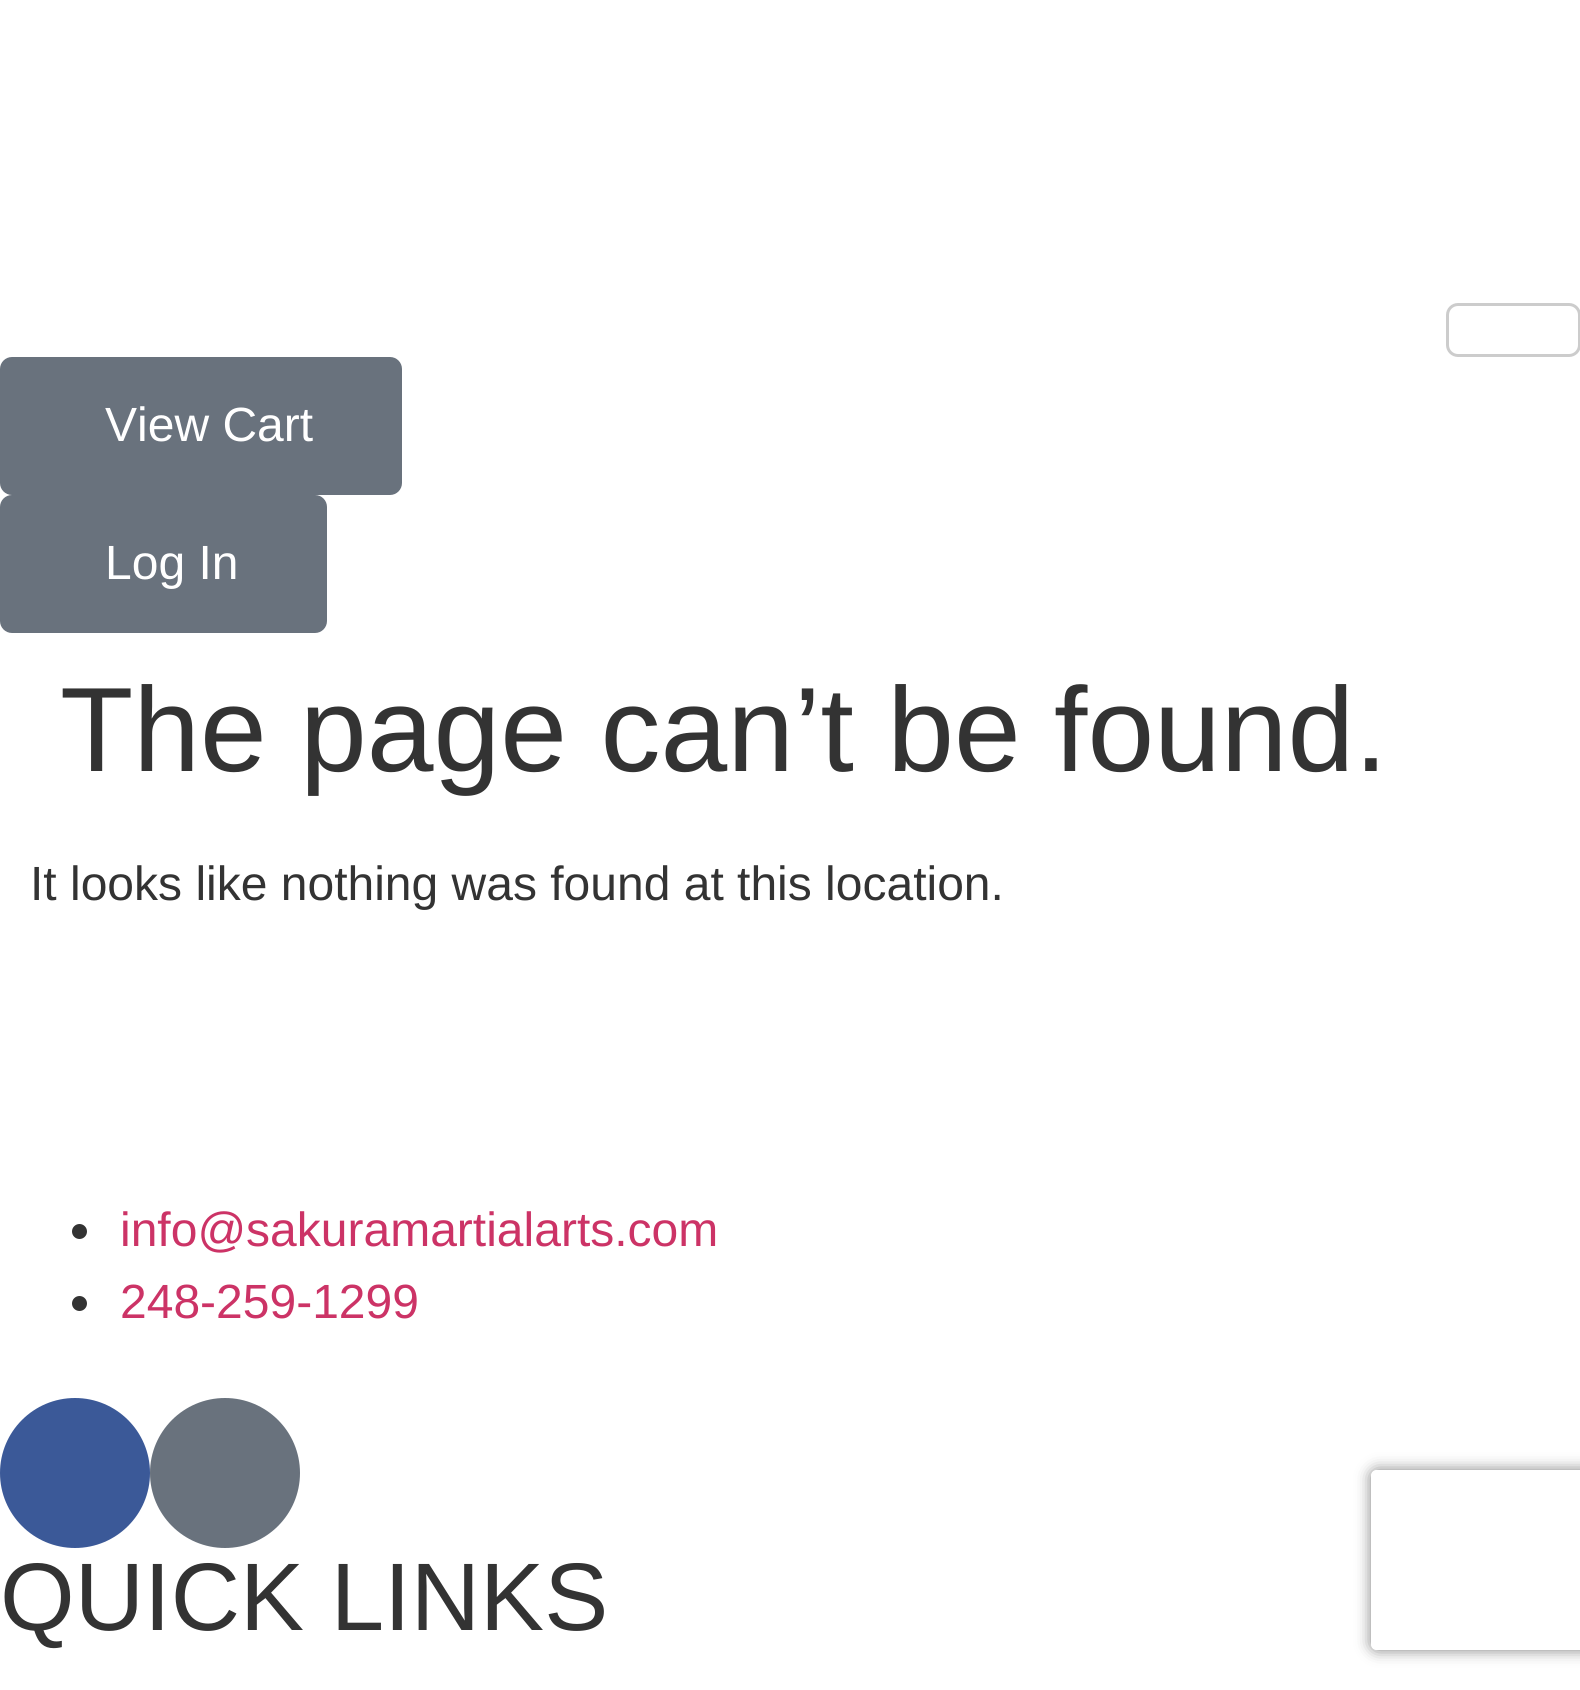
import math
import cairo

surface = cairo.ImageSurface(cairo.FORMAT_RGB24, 1580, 1690)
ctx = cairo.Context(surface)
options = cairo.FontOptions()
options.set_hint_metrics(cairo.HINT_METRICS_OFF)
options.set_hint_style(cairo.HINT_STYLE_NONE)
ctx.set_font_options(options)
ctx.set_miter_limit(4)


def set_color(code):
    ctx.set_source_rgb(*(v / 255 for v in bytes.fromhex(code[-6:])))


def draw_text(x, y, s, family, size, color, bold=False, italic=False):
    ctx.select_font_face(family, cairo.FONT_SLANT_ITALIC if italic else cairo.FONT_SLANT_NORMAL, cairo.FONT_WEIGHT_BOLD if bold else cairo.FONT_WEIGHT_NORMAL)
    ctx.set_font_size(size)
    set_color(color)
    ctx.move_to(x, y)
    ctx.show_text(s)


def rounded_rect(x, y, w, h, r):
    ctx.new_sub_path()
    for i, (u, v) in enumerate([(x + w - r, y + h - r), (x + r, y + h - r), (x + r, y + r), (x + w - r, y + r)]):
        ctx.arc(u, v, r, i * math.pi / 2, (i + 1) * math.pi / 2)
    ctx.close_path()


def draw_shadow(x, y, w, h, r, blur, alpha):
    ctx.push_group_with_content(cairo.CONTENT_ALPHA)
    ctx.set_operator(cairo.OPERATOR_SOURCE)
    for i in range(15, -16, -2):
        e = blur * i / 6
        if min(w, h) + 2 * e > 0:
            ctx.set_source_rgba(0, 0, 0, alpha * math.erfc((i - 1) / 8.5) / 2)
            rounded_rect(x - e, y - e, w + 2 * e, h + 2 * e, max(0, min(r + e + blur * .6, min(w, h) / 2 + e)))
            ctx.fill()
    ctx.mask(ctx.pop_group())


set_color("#ffffff")
ctx.paint()
rounded_rect(1447.5, 304.5, 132, 51, 10.5)
set_color("#cccccc")
ctx.set_line_width(3)
ctx.stroke()
set_color("#69727d")
rounded_rect(0, 357, 402, 138, 12)
ctx.fill()
draw_text(105, 441, "View Cart", "Liberation Sans", 48, "#ffffff")
set_color("#69727d")
rounded_rect(0, 495, 327, 138, 12)
ctx.fill()
draw_text(105, 579, "Log In", "Liberation Sans", 48, "#ffffff")
draw_text(60, 771, "The page can’t be found.", "Liberation Sans", 120, "#333333")
draw_text(30, 900, "It looks like nothing was found at this location.", "Liberation Sans", 48, "#333333")
ctx.new_path()
ctx.arc(79.5, 1231.5, 7.5, 0, 2 * math.pi)
ctx.fill()
draw_text(120, 1246, "info@sakuramartialarts.com", "Liberation Sans", 48, "#cc3366")
set_color("#333333")
ctx.new_path()
ctx.arc(79.5, 1303.5, 7.5, 0, 2 * math.pi)
ctx.fill()
draw_text(120, 1318, "248-259-1299", "Liberation Sans", 48, "#cc3366")
set_color("#3b5998")
ctx.new_path()
ctx.arc(75, 1473, 75, 0, 2 * math.pi)
ctx.fill()
set_color("#69727d")
ctx.arc(225, 1473, 75, 0, 2 * math.pi)
ctx.fill()
draw_text(0, 1630, "QUICK LINKS", "Liberation Sans", 96, "#333333")
ctx.save()
ctx.set_fill_rule(cairo.FILL_RULE_EVEN_ODD)
ctx.new_path()
ctx.move_to(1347, 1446)
ctx.line_to(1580, 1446)
ctx.line_to(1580, 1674)
ctx.line_to(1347, 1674)
ctx.close_path()
ctx.move_to(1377, 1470)
ctx.line_to(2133, 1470)
ctx.curve_to(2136.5, 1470, 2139, 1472.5, 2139, 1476)
ctx.line_to(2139, 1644)
ctx.curve_to(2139, 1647.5, 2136.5, 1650, 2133, 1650)
ctx.line_to(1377, 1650)
ctx.curve_to(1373.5, 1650, 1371, 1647.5, 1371, 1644)
ctx.line_to(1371, 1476)
ctx.curve_to(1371, 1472.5, 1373.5, 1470, 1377, 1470)
ctx.close_path()
ctx.clip()
set_color("#808080")
draw_shadow(1371, 1470, 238, 180, 6, 7.5, 1)
ctx.restore()
surface.write_to_png("output.png")
